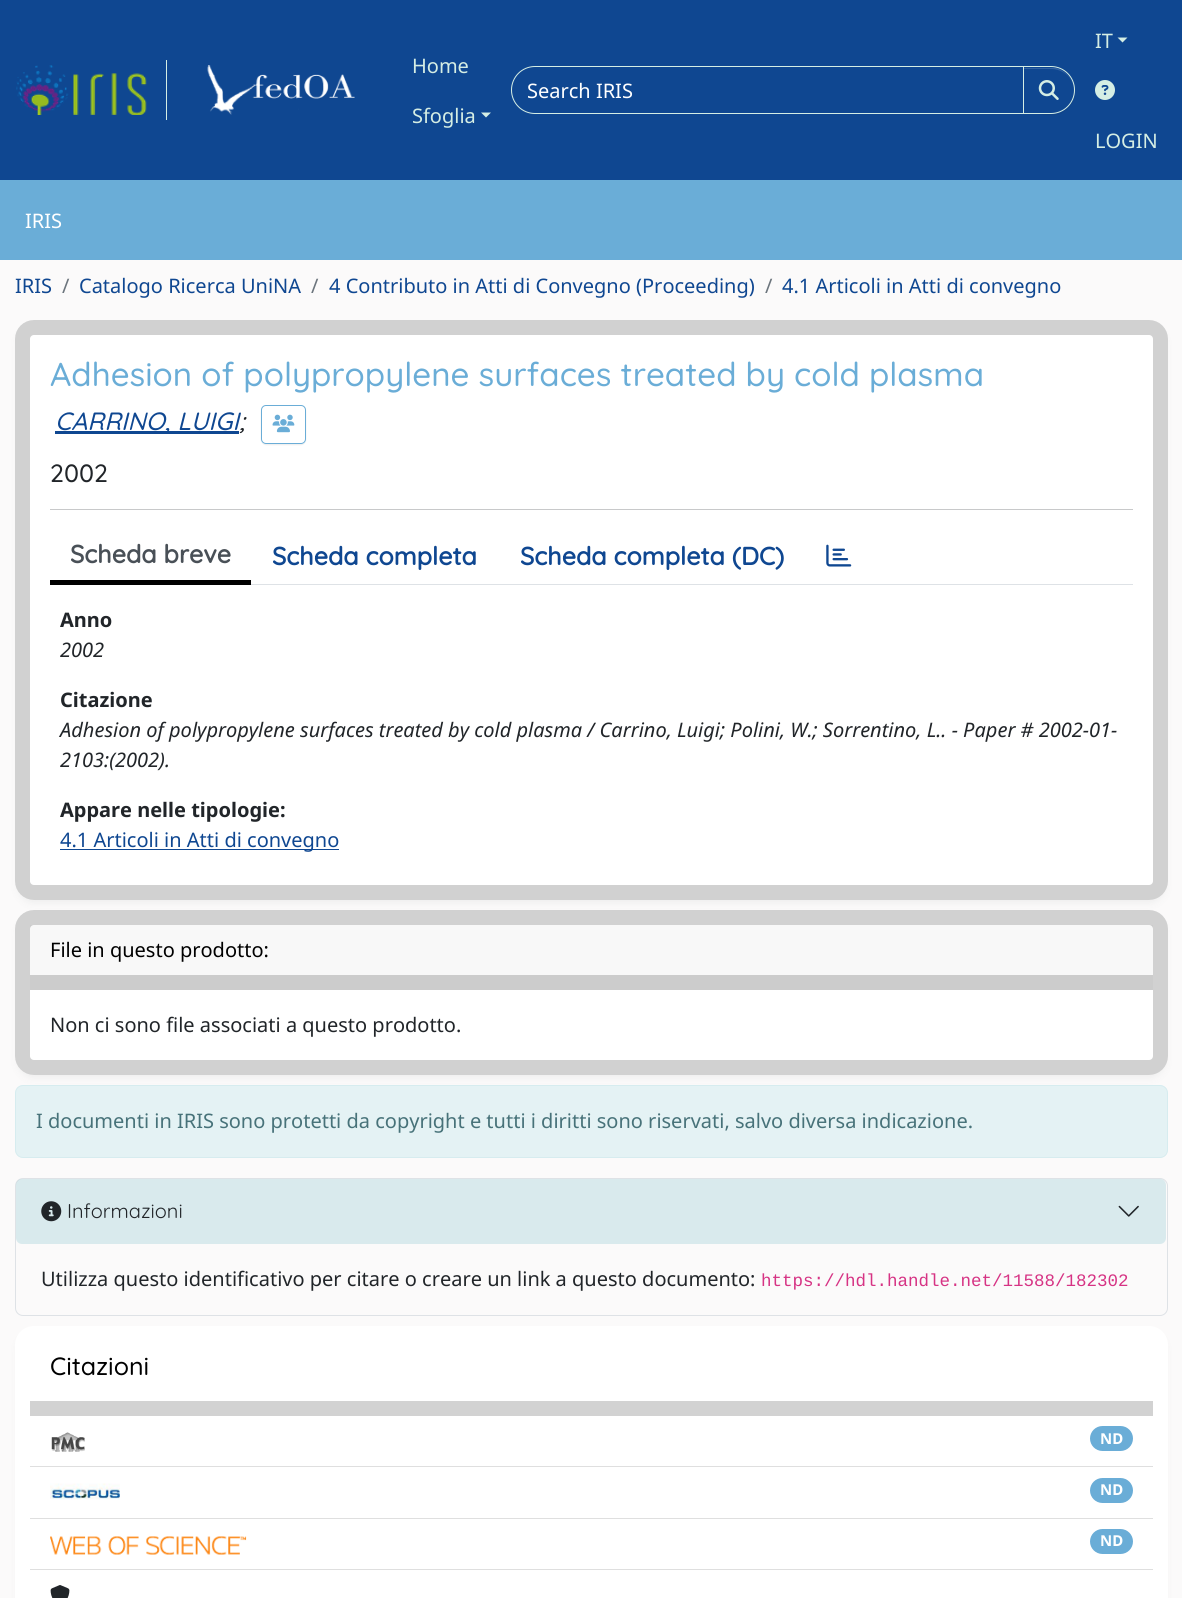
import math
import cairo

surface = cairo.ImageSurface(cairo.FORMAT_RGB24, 1182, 1598)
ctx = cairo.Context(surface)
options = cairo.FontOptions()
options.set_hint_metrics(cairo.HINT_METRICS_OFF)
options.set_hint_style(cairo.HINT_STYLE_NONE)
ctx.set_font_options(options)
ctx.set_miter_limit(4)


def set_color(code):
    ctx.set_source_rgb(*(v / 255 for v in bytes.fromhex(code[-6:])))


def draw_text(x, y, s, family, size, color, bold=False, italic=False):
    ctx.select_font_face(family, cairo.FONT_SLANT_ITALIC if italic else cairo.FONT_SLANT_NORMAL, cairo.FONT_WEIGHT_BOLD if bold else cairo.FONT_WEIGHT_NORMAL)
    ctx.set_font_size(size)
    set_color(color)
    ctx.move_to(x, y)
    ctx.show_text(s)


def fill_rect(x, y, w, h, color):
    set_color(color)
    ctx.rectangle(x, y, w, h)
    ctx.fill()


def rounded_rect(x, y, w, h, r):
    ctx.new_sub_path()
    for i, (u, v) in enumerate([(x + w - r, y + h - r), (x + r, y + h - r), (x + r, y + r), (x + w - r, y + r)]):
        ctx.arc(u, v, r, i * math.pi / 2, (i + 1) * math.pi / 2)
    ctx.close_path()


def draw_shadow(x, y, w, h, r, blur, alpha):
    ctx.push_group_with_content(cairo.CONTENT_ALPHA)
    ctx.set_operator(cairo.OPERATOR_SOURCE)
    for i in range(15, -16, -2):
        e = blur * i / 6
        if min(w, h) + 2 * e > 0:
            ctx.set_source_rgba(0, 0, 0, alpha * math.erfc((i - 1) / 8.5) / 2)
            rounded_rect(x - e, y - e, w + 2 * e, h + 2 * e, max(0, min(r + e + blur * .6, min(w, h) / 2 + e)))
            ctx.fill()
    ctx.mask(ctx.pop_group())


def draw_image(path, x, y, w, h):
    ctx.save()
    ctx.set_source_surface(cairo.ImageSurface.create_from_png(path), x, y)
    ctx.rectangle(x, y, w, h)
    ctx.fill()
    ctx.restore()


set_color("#fbfafa")
ctx.paint()
fill_rect(0, 0, 1182, 180, "#0f4791")
fill_rect(166, 60, 1, 60, "#d5eee4")
draw_image("assets/img1.png", 16, 65, 131, 50)
draw_image("assets/img2.png", 207, 65, 148, 50)
draw_text(412, 73, "Home", "Noto Sans", 20, "#d5eee4")
draw_text(412, 123, "Sfoglia", "Noto Sans", 20, "#d5eee4")
ctx.new_path()
ctx.move_to(481, 112.5)
ctx.line_to(491, 112.5)
ctx.line_to(486, 117.5)
ctx.close_path()
ctx.fill()
ctx.new_path()
ctx.move_to(535, 66.5)
ctx.line_to(1023.5, 66.5)
ctx.line_to(1023.5, 113.5)
ctx.line_to(535, 113.5)
ctx.curve_to(522, 113.5, 511.5, 103, 511.5, 90)
ctx.curve_to(511.5, 77, 522, 66.5, 535, 66.5)
ctx.close_path()
ctx.set_line_width(1)
ctx.stroke()
draw_text(527, 98, "Search IRIS", "Noto Sans", 20, "#ffffff")
set_color("#000000")
draw_shadow(1023, 68, 52, 47, 23.5, 0.5, 0.07)
set_color("#0f4791")
ctx.new_path()
ctx.move_to(1023, 66)
ctx.line_to(1051, 66)
ctx.curve_to(1064.5, 66, 1075, 76.5, 1075, 90)
ctx.curve_to(1075, 103.5, 1064.5, 114, 1051, 114)
ctx.line_to(1023, 114)
ctx.close_path()
ctx.fill()
set_color("#3363a2")
ctx.new_path()
ctx.move_to(1024, 69)
ctx.line_to(1051, 69)
ctx.curve_to(1064, 69, 1074, 79, 1074, 91)
ctx.curve_to(1074, 80, 1066, 71, 1056, 68)
ctx.line_to(1024, 68)
ctx.close_path()
ctx.fill()
ctx.new_path()
ctx.move_to(1023.5, 66.5)
ctx.line_to(1051, 66.5)
ctx.curve_to(1064, 66.5, 1074.5, 77, 1074.5, 90)
ctx.curve_to(1074.5, 103, 1064, 113.5, 1051, 113.5)
ctx.line_to(1023.5, 113.5)
ctx.close_path()
set_color("#d5eee4")
ctx.stroke()
draw_image("assets/img3.png", 1038, 80, 21, 20)
draw_text(1095, 48, "IT", "Noto Sans", 20, "#d5eee4")
ctx.new_path()
ctx.move_to(1117.5, 37.5)
ctx.line_to(1127.5, 37.5)
ctx.line_to(1122.5, 42.5)
ctx.close_path()
ctx.fill()
draw_image("assets/img4.png", 1095, 80, 20, 20)
draw_text(1095, 148, "LOGIN", "Noto Sans", 20, "#d5eee4")
fill_rect(0, 180, 1182, 80, "#6aadd7")
draw_text(25, 228, "IRIS", "Noto Sans", 20, "#ffffff")
draw_text(15, 293, "IRIS", "Noto Sans", 20, "#0f4791")
draw_text(62, 293, "/", "Noto Sans", 20, "#6c757d")
draw_text(79, 293, "Catalogo Ricerca UniNA", "Noto Sans", 20, "#0f4791")
draw_text(311, 293, "/", "Noto Sans", 20, "#6c757d")
draw_text(329, 293, "4 Contributo in Atti di Convegno (Proceeding)", "Noto Sans", 20, "#0f4791")
draw_text(765, 293, "/", "Noto Sans", 20, "#6c757d")
draw_text(782, 293, "4.1 Articoli in Atti di convegno", "Noto Sans", 20, "#0f4791")
set_color("#eeeeee")
draw_shadow(18, 328, 1147, 575, 16, 4, 1)
set_color("#ffffff")
rounded_rect(15, 320, 1153, 580, 19)
ctx.fill()
rounded_rect(22.5, 327.5, 1138, 565, 11.5)
ctx.set_source_rgba(0, 0, 0, 0.18)
ctx.set_line_width(15)
ctx.stroke()
draw_text(50, 386, "Adhesion of polypropylene surfaces treated by cold plasma", "Quicksand Medium", 33.1, "#6aadd7")
fill_rect(55, 431, 184, 3, "#0f4791")
draw_text(55, 430, "CARRINO, LUIGI", "Quicksand Medium", 25, "#0f4791", italic=True)
draw_text(239, 430, ";", "Quicksand Medium", 25, "#212529", italic=True)
ctx.save()
ctx.set_fill_rule(cairo.FILL_RULE_EVEN_ODD)
ctx.new_path()
ctx.move_to(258, 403)
ctx.line_to(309, 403)
ctx.line_to(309, 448)
ctx.line_to(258, 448)
ctx.close_path()
ctx.move_to(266, 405)
ctx.line_to(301, 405)
ctx.curve_to(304, 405, 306, 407, 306, 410)
ctx.line_to(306, 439)
ctx.curve_to(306, 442, 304, 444, 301, 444)
ctx.line_to(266, 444)
ctx.curve_to(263, 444, 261, 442, 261, 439)
ctx.line_to(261, 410)
ctx.curve_to(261, 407, 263, 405, 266, 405)
ctx.close_path()
ctx.clip()
set_color("#000000")
draw_shadow(261, 406, 45, 39, 5, 0.5, 0.07)
ctx.restore()
rounded_rect(261.5, 405.5, 44, 38, 4.5)
set_color("#6aadd7")
ctx.set_line_width(1)
ctx.stroke()
draw_image("assets/img5.png", 272, 414, 23, 19)
draw_text(50, 482, "2002", "Quicksand Medium", 25, "#212529")
fill_rect(50, 509, 1083, 1, "#c8c9ca")
fill_rect(251, 584, 882, 1, "#dee2e6")
fill_rect(50, 580, 201, 5, "#000000")
draw_text(70, 563, "Scheda breve", "Quicksand", 25, "#495057", bold=True)
draw_text(272, 565, "Scheda completa", "Quicksand", 25, "#0f4791", bold=True)
draw_text(520, 565, "Scheda completa (DC)", "Quicksand", 25, "#0f4791", bold=True)
draw_image("assets/img6.png", 826, 544, 26, 23)
draw_text(60, 627, "Anno", "Noto Sans", 20, "#212529", bold=True)
draw_text(60, 657, "2002", "Noto Sans", 20, "#212529", italic=True)
draw_text(60, 707, "Citazione", "Noto Sans", 20, "#212529", bold=True)
draw_text(60, 737, "Adhesion of polypropylene surfaces treated by cold plasma / Carrino, Luigi; Polini, W.; Sorrentino, L.. - Paper # 2002-01-", "Noto Sans", 20, "#212529", italic=True)
draw_text(60, 767, "2103:(2002).", "Noto Sans", 20, "#212529", italic=True)
draw_text(60, 817, "Appare nelle tipologie:", "Noto Sans", 20, "#212529", bold=True)
fill_rect(60, 849, 279, 1, "#0f4791")
draw_text(60, 847, "4.1 Articoli in Atti di convegno", "Noto Sans", 20, "#0f4791")
set_color("#eeeeee")
draw_shadow(18, 918, 1147, 160, 16, 4, 1)
set_color("#ffffff")
rounded_rect(15, 910, 1153, 165, 19)
ctx.fill()
rounded_rect(22.5, 917.5, 1138, 150, 11.5)
ctx.set_source_rgba(0, 0, 0, 0.18)
ctx.set_line_width(15)
ctx.stroke()
ctx.set_source_rgba(0, 0, 0, 0.03)
ctx.rectangle(30, 925, 1123, 50)
ctx.fill()
fill_rect(30, 975, 1123, 15, "#cccccc")
draw_text(50, 957, "File in questo prodotto:", "Noto Sans", 20, "#000000")
draw_text(50, 1032, "Non ci sono file associati a questo prodotto.", "Noto Sans", 20, "#212529")
set_color("#e4f2f4")
rounded_rect(15.5, 1085.5, 1152, 72, 7.5)
ctx.fill_preserve()
set_color("#d6ecef")
ctx.set_line_width(1)
ctx.stroke()
draw_text(36, 1128, "I documenti in IRIS sono protetti da copyright e tutti i diritti sono riservati, salvo diversa indicazione.", "Noto Sans", 20, "#477279")
rounded_rect(15.5, 1178.5, 1152, 137, 7.5)
set_color("#dee2e6")
ctx.stroke()
ctx.set_source_rgba(0.467, 0.745, 0.792, 0.25)
rounded_rect(16, 1179, 1150, 65, 6)
ctx.fill()
draw_image("assets/img7.png", 41, 1201, 21, 21)
draw_text(67, 1218, "Informazioni", "Quicksand", 20, "#212529")
draw_image("assets/img8.png", 1118, 1205, 21, 12)
draw_text(41, 1286, "Utilizza questo identificativo per citare o creare un link a questo documento:", "Noto Sans", 20, "#212529")
draw_text(761, 1286, "https://hdl.handle.net/11588/182302", "Liberation Mono", 17.5, "#d63384")
set_color("#eeeeee")
draw_shadow(18, 1334, 1147, 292, 16, 4, 1)
set_color("#ffffff")
rounded_rect(15, 1326, 1153, 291, 19)
ctx.fill()
fill_rect(30, 1401, 1123, 15, "#d2d2d2")
draw_text(50, 1375, "Citazioni", "Quicksand Medium", 25, "#000000")
fill_rect(30, 1466, 1123, 1, "#dfdfdf")
draw_image("assets/img9.png", 51, 1432, 34, 20)
set_color("#6aadd7")
rounded_rect(1090, 1426, 43, 25, 12.5)
ctx.fill()
draw_text(1100, 1444, "ND", "Noto Sans", 15, "#ffffff", bold=True)
fill_rect(30, 1518, 1123, 1, "#dfdfdf")
draw_image("assets/img10.png", 50, 1483, 70, 17)
set_color("#6aadd7")
rounded_rect(1090, 1478, 43, 25, 12.5)
ctx.fill()
draw_text(1100, 1495, "ND", "Noto Sans", 15, "#ffffff", bold=True)
fill_rect(30, 1569, 1123, 1, "#dfdfdf")
draw_image("assets/img11.png", 50, 1536, 197, 19)
set_color("#6aadd7")
rounded_rect(1090, 1529, 43, 25, 12.5)
ctx.fill()
draw_text(1100, 1546, "ND", "Noto Sans", 15, "#ffffff", bold=True)
draw_image("assets/img12.png", 50, 1585, 20, 13)
surface.write_to_png("output.png")
